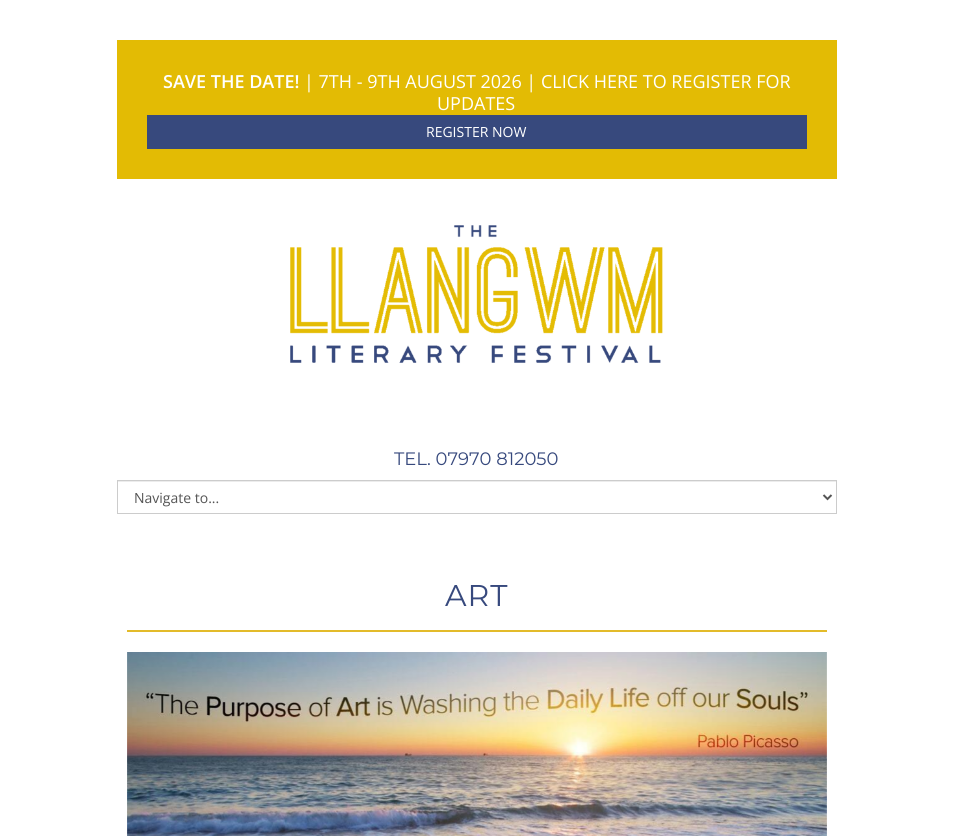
import math
import cairo

surface = cairo.ImageSurface(cairo.FORMAT_RGB24, 953, 836)
ctx = cairo.Context(surface)
options = cairo.FontOptions()
options.set_hint_metrics(cairo.HINT_METRICS_OFF)
options.set_hint_style(cairo.HINT_STYLE_NONE)
ctx.set_font_options(options)
ctx.set_miter_limit(4)


def set_color(code):
    ctx.set_source_rgb(*(v / 255 for v in bytes.fromhex(code[-6:])))


def draw_text(x, y, s, family, size, color, bold=False, italic=False):
    ctx.select_font_face(family, cairo.FONT_SLANT_ITALIC if italic else cairo.FONT_SLANT_NORMAL, cairo.FONT_WEIGHT_BOLD if bold else cairo.FONT_WEIGHT_NORMAL)
    ctx.set_font_size(size)
    set_color(color)
    ctx.move_to(x, y)
    ctx.show_text(s)


def draw_spaced(x, y, s, letter, word):
    ctx.move_to(x, y)
    for ch in s:
        ctx.show_text(ch)
        ctx.rel_move_to(letter + word * (ch == ' '), 0)


def fill_rect(x, y, w, h, color):
    set_color(color)
    ctx.rectangle(x, y, w, h)
    ctx.fill()


def draw_image(path, x, y, w, h):
    ctx.save()
    ctx.set_source_surface(cairo.ImageSurface.create_from_png(path), x, y)
    ctx.rectangle(x, y, w, h)
    ctx.fill()
    ctx.restore()


set_color("#ffffff")
ctx.paint()
fill_rect(117, 40, 720, 139, "#e3bb04")
draw_text(163, 88, "SAVE THE DATE!", "Open Sans SemiBold", 18, "#ffffff")
draw_text(304, 88, "| 7TH - 9TH AUGUST 2026 | CLICK HERE TO REGISTER FOR", "Open Sans", 18, "#ffffff")
draw_text(437, 110, "UPDATES", "Open Sans", 18, "#ffffff")
fill_rect(147, 115, 660, 34, "#37497d")
draw_text(426, 137, "REGISTER NOW", "Open Sans", 14, "#ffffff")
draw_image("assets/img1.png", 290, 225, 373, 138)
draw_text(394, 465, "TEL. 07970 812050", "Montserrat", 18, "#37497d")
fill_rect(118, 481, 718, 1, "#ececec")
ctx.rectangle(117.5, 480.5, 719, 33)
set_color("#cccccc")
ctx.set_line_width(1)
ctx.stroke()
ctx.new_path()
ctx.move_to(823.5, 495)
ctx.line_to(827.5, 499)
ctx.line_to(831.5, 495)
set_color("#555555")
ctx.set_line_width(2)
ctx.stroke()
draw_text(134, 503, "Navigate to...", "Open Sans", 14, "#555555")
fill_rect(127, 630, 700, 2, "#e3bb2a")
ctx.select_font_face("Montserrat")
ctx.set_font_size(30)
set_color("#37497d")
draw_spaced(445, 606, "ART", 1, 0)
draw_image("assets/img2.png", 127, 652, 700, 184)
surface.write_to_png("output.png")
